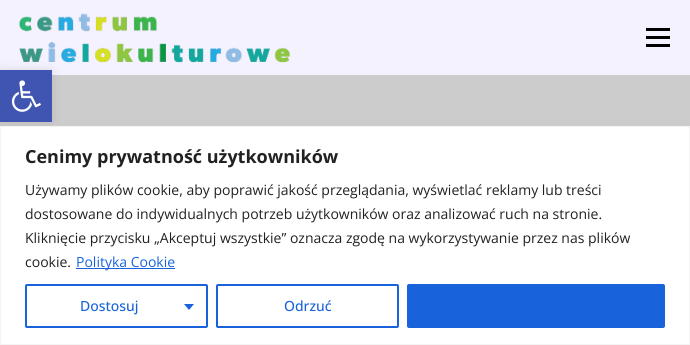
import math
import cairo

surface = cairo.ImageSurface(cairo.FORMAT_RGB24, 690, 345)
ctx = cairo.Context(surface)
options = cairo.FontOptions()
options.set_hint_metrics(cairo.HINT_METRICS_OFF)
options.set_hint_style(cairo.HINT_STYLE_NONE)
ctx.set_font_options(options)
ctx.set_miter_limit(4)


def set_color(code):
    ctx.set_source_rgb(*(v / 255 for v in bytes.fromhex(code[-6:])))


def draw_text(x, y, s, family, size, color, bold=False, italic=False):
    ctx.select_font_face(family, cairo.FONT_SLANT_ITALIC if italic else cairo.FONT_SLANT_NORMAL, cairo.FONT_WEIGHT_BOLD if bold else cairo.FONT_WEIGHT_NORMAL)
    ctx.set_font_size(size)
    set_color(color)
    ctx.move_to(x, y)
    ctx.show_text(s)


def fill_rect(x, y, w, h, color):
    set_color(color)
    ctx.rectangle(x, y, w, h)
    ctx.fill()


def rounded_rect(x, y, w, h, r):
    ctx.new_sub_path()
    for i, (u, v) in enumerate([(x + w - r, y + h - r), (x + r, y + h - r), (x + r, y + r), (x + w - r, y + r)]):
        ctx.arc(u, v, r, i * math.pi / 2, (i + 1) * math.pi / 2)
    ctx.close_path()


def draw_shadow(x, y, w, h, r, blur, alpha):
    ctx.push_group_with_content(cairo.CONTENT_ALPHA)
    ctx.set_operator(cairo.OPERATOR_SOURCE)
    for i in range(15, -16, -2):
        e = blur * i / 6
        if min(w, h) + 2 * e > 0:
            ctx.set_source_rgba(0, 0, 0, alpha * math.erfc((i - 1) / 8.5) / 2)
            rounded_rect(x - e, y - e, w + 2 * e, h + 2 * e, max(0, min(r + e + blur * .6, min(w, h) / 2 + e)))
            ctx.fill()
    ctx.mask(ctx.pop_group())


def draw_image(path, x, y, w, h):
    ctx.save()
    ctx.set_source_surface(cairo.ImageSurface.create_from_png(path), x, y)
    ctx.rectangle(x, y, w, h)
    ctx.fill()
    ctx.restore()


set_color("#cccccc")
ctx.paint()
fill_rect(0, 0, 690, 75, "#f4f2ff")
draw_image("assets/img1.png", 19, 13, 271, 50)
fill_rect(646, 36, 24, 3, "#000000")
fill_rect(646, 28, 24, 3, "#000000")
fill_rect(646, 44, 24, 3, "#000000")
set_color("#000000")
draw_shadow(0, 70, 52, 52, 0, 5, 0.1)
fill_rect(0, 70, 52, 52, "#4054b2")
draw_image("assets/img2.png", 11, 80, 30, 32)
set_color("#ffffff")
ctx.rectangle(0.5, 126.5, 689, 218)
ctx.fill_preserve()
set_color("#f4f4f4")
ctx.set_line_width(1)
ctx.stroke()
draw_text(25, 163, "Cenimy prywatność użytkowników", "Open Sans", 18, "#212121", bold=True)
draw_text(25, 195, "Używamy plików cookie, aby poprawić jakość przeglądania, wyświetlać reklamy lub treści", "Open Sans", 14, "#212121")
draw_text(25, 219, "dostosowane do indywidualnych potrzeb użytkowników oraz analizować ruch na stronie.", "Open Sans", 14, "#212121")
draw_text(25, 243, "Kliknięcie przycisku „Akceptuj wszystkie” oznacza zgodę na wykorzystywanie przez nas plików", "Open Sans", 14, "#212121")
draw_text(25, 267, "cookie.", "Open Sans", 14, "#212121")
fill_rect(76, 268, 99, 1, "#1863dc")
draw_text(76, 267, "Polityka Cookie", "Open Sans", 14, "#1863dc")
rounded_rect(26, 285, 181, 42, 1)
ctx.set_line_width(2)
ctx.stroke()
draw_text(80, 311, "Dostosuj", "Open Sans Medium", 14, "#1863dc")
ctx.new_path()
ctx.move_to(184, 304)
ctx.line_to(194, 304)
ctx.line_to(189, 310)
ctx.close_path()
ctx.fill()
rounded_rect(217, 285, 181, 42, 1)
ctx.stroke()
draw_text(284, 311, "Odrzuć", "Open Sans Medium", 14, "#1863dc")
rounded_rect(408, 285, 256, 42, 1)
ctx.fill_preserve()
ctx.stroke()
surface.write_to_png("output.png")
